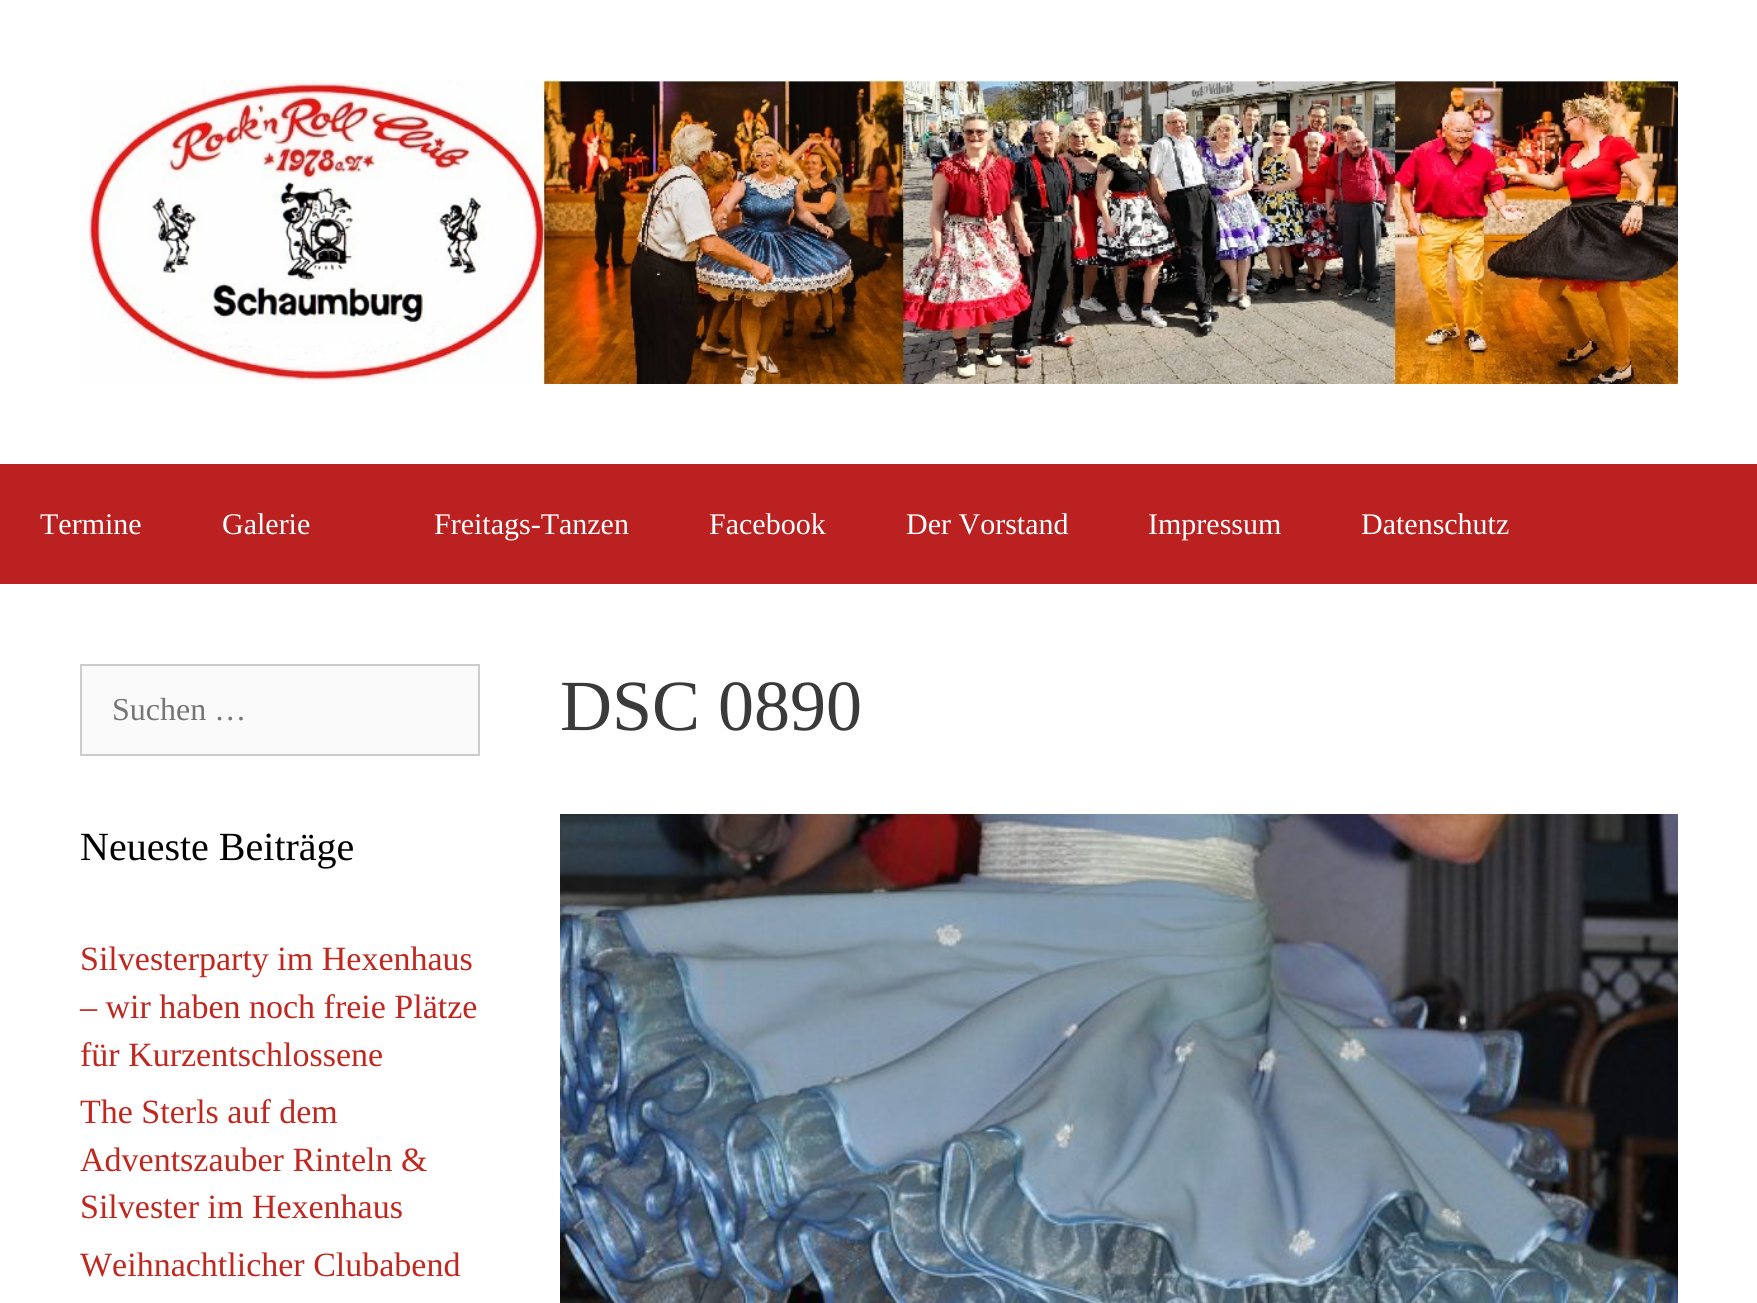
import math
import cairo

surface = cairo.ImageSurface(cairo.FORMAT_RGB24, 1757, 1303)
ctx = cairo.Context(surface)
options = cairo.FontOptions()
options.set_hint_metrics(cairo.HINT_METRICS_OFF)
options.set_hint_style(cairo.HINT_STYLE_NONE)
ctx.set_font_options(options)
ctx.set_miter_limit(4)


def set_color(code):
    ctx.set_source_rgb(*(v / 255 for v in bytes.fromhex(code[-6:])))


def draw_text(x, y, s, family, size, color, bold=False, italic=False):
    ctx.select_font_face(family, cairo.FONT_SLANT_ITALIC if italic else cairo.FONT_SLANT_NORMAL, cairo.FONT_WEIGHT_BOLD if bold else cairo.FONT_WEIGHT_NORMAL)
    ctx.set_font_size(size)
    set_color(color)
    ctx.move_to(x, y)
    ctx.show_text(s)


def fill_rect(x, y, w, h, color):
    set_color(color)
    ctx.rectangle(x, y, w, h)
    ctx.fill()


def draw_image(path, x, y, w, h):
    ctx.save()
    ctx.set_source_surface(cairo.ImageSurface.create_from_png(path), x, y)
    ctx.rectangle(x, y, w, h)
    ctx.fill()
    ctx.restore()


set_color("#bc2121")
ctx.paint()
fill_rect(0, 0, 1757, 464, "#ffffff")
draw_image("assets/img1.png", 80, 80, 1598, 304)
draw_text(40, 534, "Termine", "Liberation Serif", 30, "#ffffff")
draw_text(222, 534, "Galerie", "Liberation Serif", 30, "#ffffff")
draw_text(434, 534, "Freitags-Tanzen", "Liberation Serif", 30, "#ffffff")
draw_text(709, 534, "Facebook", "Liberation Serif", 30, "#ffffff")
draw_text(906, 534, "Der Vorstand", "Liberation Serif", 30, "#ffffff")
draw_text(1148, 534, "Impressum", "Liberation Serif", 30, "#ffffff")
draw_text(1361, 534, "Datenschutz", "Liberation Serif", 30, "#ffffff")
fill_rect(0, 584, 1757, 719, "#ffffff")
set_color("#fafafa")
ctx.rectangle(81, 665, 398, 90)
ctx.fill_preserve()
set_color("#cccccc")
ctx.stroke()
draw_text(112, 720, "Suchen …", "Liberation Serif", 32, "#757575")
draw_text(80, 860, "Neueste Beiträge", "Liberation Serif", 40, "#000000")
draw_text(80, 970, "Silvesterparty im Hexenhaus", "Liberation Serif", 34, "#bf271f")
draw_text(80, 1018, "– wir haben noch freie Plätze", "Liberation Serif", 34, "#bf271f")
draw_text(80, 1066, "für Kurzentschlossene", "Liberation Serif", 34, "#bf271f")
draw_text(80, 1123, "The Sterls auf dem", "Liberation Serif", 34, "#bf271f")
draw_text(80, 1171, "Adventszauber Rinteln &", "Liberation Serif", 34, "#bf271f")
draw_text(80, 1218, "Silvester im Hexenhaus", "Liberation Serif", 34, "#bf271f")
draw_text(80, 1276, "Weihnachtlicher Clubabend", "Liberation Serif", 34, "#bf271f")
draw_text(560, 730, "DSC 0890", "Liberation Serif", 72, "#3a3a3a")
draw_image("assets/img2.png", 560, 814, 1118, 489)
surface.write_to_png("output.png")
